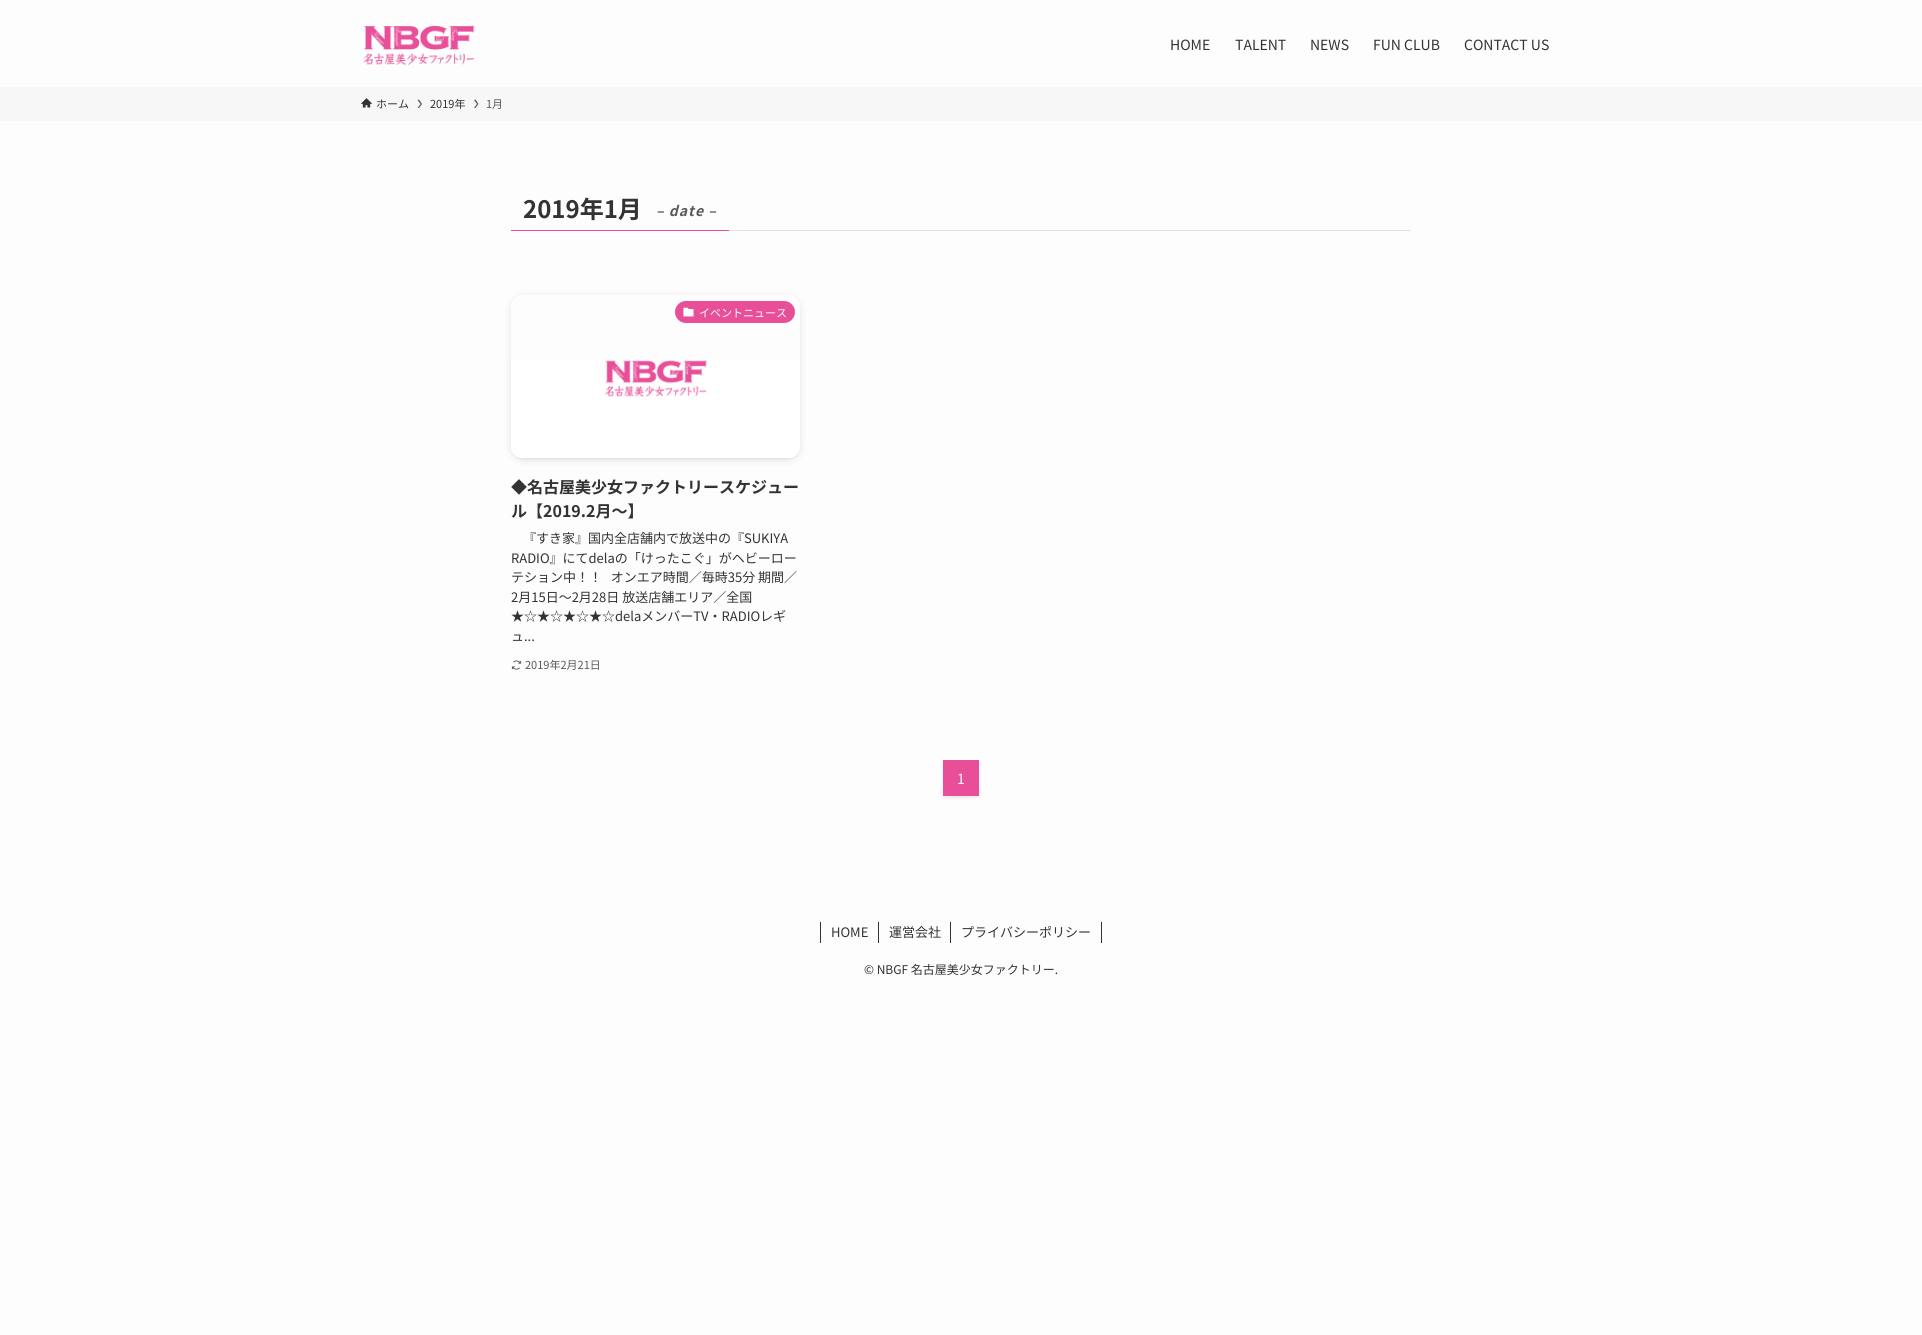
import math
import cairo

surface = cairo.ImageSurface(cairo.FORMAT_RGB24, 1922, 1335)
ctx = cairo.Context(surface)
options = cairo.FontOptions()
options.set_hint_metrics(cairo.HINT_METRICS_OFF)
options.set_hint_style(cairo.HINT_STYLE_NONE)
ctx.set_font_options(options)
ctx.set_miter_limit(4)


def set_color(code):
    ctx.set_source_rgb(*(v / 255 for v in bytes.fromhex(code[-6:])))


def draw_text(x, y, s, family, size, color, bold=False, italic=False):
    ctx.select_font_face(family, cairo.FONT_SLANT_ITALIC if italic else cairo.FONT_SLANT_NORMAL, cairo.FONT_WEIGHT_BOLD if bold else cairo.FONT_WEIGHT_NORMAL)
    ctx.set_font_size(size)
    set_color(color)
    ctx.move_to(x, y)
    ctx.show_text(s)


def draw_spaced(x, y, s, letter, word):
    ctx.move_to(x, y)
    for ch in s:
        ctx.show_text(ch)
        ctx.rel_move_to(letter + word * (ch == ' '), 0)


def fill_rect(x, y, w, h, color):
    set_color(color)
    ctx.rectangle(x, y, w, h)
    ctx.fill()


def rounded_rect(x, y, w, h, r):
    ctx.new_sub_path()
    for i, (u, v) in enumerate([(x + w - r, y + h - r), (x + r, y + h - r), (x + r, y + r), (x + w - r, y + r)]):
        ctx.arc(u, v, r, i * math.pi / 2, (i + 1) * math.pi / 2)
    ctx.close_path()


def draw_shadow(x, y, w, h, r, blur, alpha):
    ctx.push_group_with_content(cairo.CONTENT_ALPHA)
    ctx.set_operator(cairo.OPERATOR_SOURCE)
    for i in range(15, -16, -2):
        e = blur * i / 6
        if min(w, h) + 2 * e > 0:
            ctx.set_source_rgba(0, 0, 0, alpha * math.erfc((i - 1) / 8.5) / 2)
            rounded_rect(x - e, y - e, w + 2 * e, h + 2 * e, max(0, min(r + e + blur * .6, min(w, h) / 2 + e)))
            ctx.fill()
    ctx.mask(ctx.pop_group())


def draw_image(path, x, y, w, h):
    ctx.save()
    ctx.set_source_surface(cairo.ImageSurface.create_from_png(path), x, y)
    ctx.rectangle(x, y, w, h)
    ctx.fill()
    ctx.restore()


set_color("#fdfdfd")
ctx.paint()
draw_image("assets/img1.png", 363, 25, 112, 40)
draw_text(1170, 50, "HOME", "Noto Sans JP", 14, "#333333")
draw_text(1235, 50, "TALENT", "Noto Sans JP", 14, "#333333")
draw_text(1310, 50, "NEWS", "Noto Sans JP", 14, "#333333")
draw_text(1373, 50, "FUN CLUB", "Noto Sans JP", 14, "#333333")
draw_text(1464, 50, "CONTACT US", "Noto Sans JP", 14, "#333333")
fill_rect(0, 87, 1922, 34, "#f7f7f7")
draw_image("assets/img2.png", 361, 98, 11, 10)
draw_text(376, 108, "ホーム", "Noto Sans JP", 11, "#333333")
set_color("#5a5a5a")
ctx.new_path()
ctx.move_to(419, 99.5)
ctx.line_to(417.5, 100)
ctx.line_to(420.5, 104)
ctx.line_to(417.5, 108)
ctx.line_to(419, 108)
ctx.line_to(422, 104)
ctx.close_path()
ctx.fill()
draw_text(430, 108, "2019年", "Noto Sans JP", 11, "#333333")
set_color("#5a5a5a")
ctx.new_path()
ctx.move_to(475.5, 99.5)
ctx.line_to(474, 100)
ctx.line_to(477, 104)
ctx.line_to(474, 108)
ctx.line_to(475.5, 108)
ctx.line_to(478.5, 104)
ctx.close_path()
ctx.fill()
draw_text(486, 108, "1月", "Noto Sans JP", 11, "#5a5a5a")
fill_rect(729, 230, 682, 1, "#e2e2e2")
fill_rect(511, 230, 218, 1, "#e84f98")
draw_text(523, 218, "2019年1月", "Noto Sans JP", 24, "#333333", bold=True)
ctx.select_font_face("Noto Sans JP", cairo.FONT_SLANT_ITALIC, cairo.FONT_WEIGHT_BOLD)
ctx.set_font_size(14)
set_color("#5a5a5a")
draw_spaced(656, 216, "– date –", 1, 0)
ctx.save()
ctx.set_fill_rule(cairo.FILL_RULE_EVEN_ODD)
ctx.new_path()
ctx.move_to(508, 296)
ctx.line_to(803, 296)
ctx.line_to(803, 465)
ctx.line_to(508, 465)
ctx.close_path()
ctx.move_to(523, 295)
ctx.line_to(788, 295)
ctx.curve_to(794.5, 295, 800, 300.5, 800, 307)
ctx.line_to(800, 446)
ctx.curve_to(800, 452.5, 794.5, 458, 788, 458)
ctx.line_to(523, 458)
ctx.curve_to(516.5, 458, 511, 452.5, 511, 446)
ctx.line_to(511, 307)
ctx.curve_to(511, 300.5, 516.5, 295, 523, 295)
ctx.close_path()
ctx.clip()
set_color("#000000")
draw_shadow(515, 303, 281, 155, 8, 2, 0.1)
ctx.restore()
ctx.save()
ctx.set_fill_rule(cairo.FILL_RULE_EVEN_ODD)
ctx.new_path()
ctx.move_to(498, 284)
ctx.line_to(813, 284)
ctx.line_to(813, 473)
ctx.line_to(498, 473)
ctx.close_path()
ctx.move_to(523, 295)
ctx.line_to(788, 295)
ctx.curve_to(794.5, 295, 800, 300.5, 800, 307)
ctx.line_to(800, 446)
ctx.curve_to(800, 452.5, 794.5, 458, 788, 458)
ctx.line_to(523, 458)
ctx.curve_to(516.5, 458, 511, 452.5, 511, 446)
ctx.line_to(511, 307)
ctx.curve_to(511, 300.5, 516.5, 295, 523, 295)
ctx.close_path()
ctx.clip()
set_color("#000000")
draw_shadow(511, 297, 289, 163, 12, 4, 0.1)
ctx.restore()
set_color("#e84f98")
rounded_rect(675, 301, 120, 22, 11)
ctx.fill()
draw_image("assets/img3.png", 683, 307, 11, 10)
draw_text(699, 317, "イベントニュース", "Noto Sans JP", 11, "#ffffff")
draw_image("assets/img4.png", 511, 360, 289, 98)
draw_text(511, 493, "◆名古屋美少女ファクトリースケジュー", "Noto Sans JP", 16, "#333333", bold=True)
draw_text(511, 517, "ル【2019.2月〜】", "Noto Sans JP", 16, "#333333", bold=True)
draw_text(523, 543, "『すき家』国内全店舗内で放送中の『SUKIYA", "Noto Sans JP", 13, "#333333")
draw_text(511, 563, "RADIO』にてdelaの「けったこぐ」がヘビーロー", "Noto Sans JP", 13, "#333333")
draw_text(511, 582, "テション中！！   オンエア時間／毎時35分 期間／", "Noto Sans JP", 13, "#333333")
draw_text(511, 602, "2月15日～2月28日 放送店舗エリア／全国", "Noto Sans JP", 13, "#333333")
draw_text(511, 621, "★☆★☆★☆★☆delaメンバーTV・RADIOレギ", "Noto Sans JP", 13, "#333333")
draw_text(511, 641, "ュ...", "Noto Sans JP", 13, "#333333")
draw_image("assets/img5.png", 511, 660, 11, 10)
draw_text(525, 669, "2019年2月21日", "Noto Sans JP", 11, "#5a5a5a")
set_color("#000000")
draw_shadow(947, 768, 28, 28, 0, 2, 0.1)
draw_shadow(943, 762, 36, 36, 0, 2, 0.05)
fill_rect(943, 760, 36, 36, "#e84f98")
draw_text(957, 784, "1", "Noto Sans JP", 14, "#ffffff")
fill_rect(878, 922, 1, 21, "#333333")
fill_rect(820, 922, 1, 21, "#333333")
draw_text(831, 937, "HOME", "Noto Sans JP", 13, "#333333")
fill_rect(950, 922, 1, 21, "#333333")
draw_text(889, 937, "運営会社", "Noto Sans JP", 13, "#333333")
fill_rect(1101, 922, 1, 21, "#333333")
draw_text(961, 937, "プライバシーポリシー", "Noto Sans JP", 13, "#333333")
draw_text(864, 974, "© NBGF 名古屋美少女ファクトリー.", "Noto Sans JP", 12, "#333333")
surface.write_to_png("output.png")
